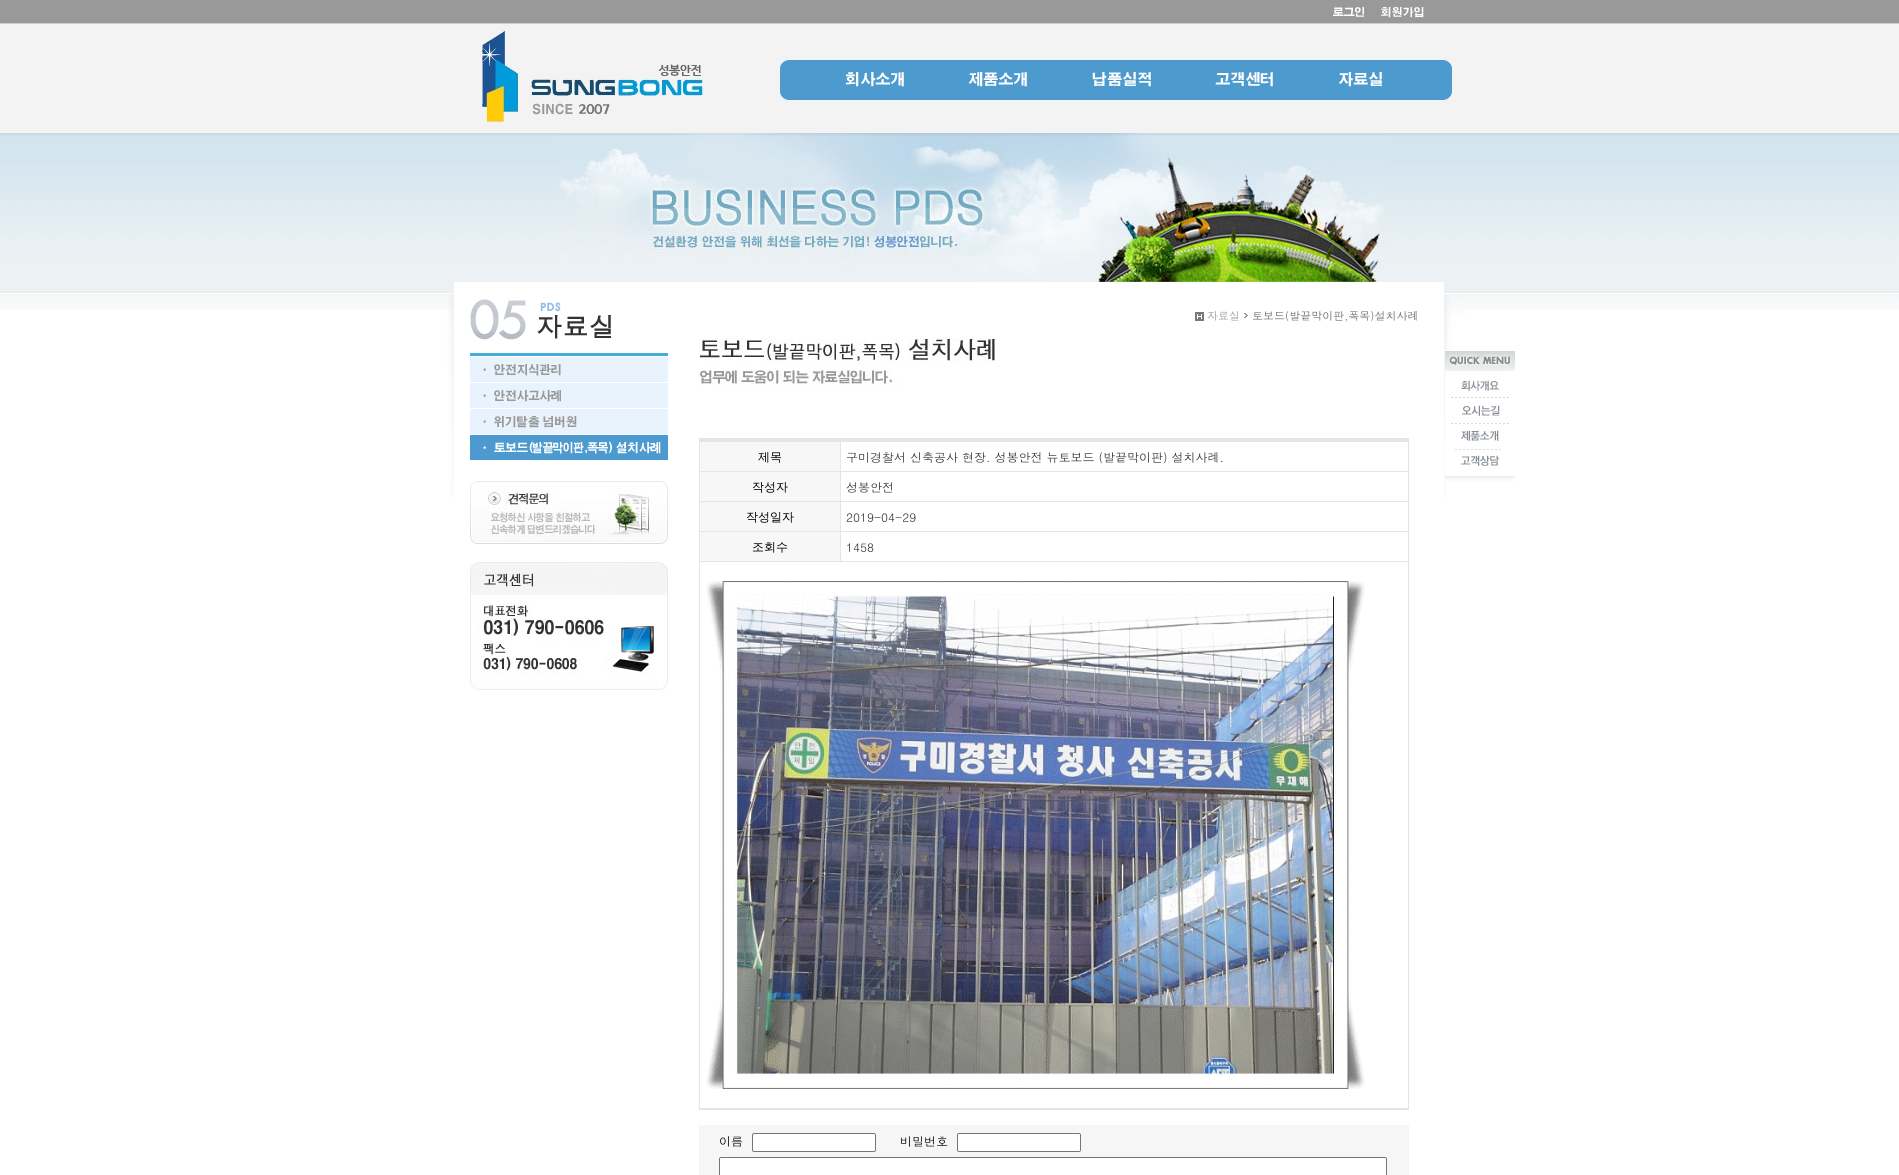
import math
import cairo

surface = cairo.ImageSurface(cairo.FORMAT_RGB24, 1899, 1175)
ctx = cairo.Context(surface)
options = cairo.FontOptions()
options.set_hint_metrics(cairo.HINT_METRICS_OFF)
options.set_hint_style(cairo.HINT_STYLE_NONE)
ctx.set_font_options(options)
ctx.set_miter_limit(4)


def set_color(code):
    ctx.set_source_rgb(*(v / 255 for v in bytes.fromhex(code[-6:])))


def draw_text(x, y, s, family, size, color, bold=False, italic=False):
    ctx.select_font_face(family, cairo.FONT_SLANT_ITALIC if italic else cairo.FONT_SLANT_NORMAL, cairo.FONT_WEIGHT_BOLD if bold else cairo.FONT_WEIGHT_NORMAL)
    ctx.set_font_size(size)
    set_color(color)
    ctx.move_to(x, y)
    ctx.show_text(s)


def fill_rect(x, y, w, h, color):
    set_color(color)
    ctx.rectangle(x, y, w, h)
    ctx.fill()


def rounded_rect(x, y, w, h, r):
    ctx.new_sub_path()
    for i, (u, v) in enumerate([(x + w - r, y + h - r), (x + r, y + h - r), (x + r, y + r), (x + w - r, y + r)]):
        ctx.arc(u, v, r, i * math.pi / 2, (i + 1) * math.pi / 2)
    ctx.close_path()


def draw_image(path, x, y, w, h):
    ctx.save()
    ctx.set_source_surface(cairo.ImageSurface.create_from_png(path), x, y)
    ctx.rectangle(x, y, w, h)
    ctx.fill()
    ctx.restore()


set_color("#ffffff")
ctx.paint()
draw_image("assets/img1.png", 0, 0, 1899, 310)
draw_image("assets/img2.png", 1333, 7, 32, 10)
draw_image("assets/img3.png", 1381, 7, 43, 11)
draw_image("assets/img4.png", 482, 31, 221, 92)
draw_image("assets/img5.png", 780, 60, 672, 40)
draw_image("assets/img6.png", 845, 72, 59, 15)
draw_image("assets/img7.png", 968, 72, 59, 15)
draw_image("assets/img8.png", 1092, 72, 59, 15)
draw_image("assets/img9.png", 1215, 72, 58, 15)
draw_image("assets/img10.png", 1339, 72, 43, 15)
draw_image("assets/img11.png", 559, 133, 826, 149)
draw_image("assets/img12.png", 447, 282, 1019, 216)
fill_rect(470, 353, 198, 3, "#45abd7")
draw_image("assets/img13.png", 470, 299, 141, 41)
draw_image("assets/img14.png", 470, 357, 198, 25)
draw_image("assets/img15.png", 470, 383, 198, 25)
draw_image("assets/img16.png", 470, 409, 198, 25)
draw_image("assets/img17.png", 470, 435, 198, 25)
draw_image("assets/img18.png", 470, 481, 198, 63)
draw_image("assets/img19.png", 470, 562, 198, 128)
draw_image("assets/img20.png", 1195, 312, 9, 9)
draw_text(1207, 320, "자료실", "Dotum", 11, "#999999")
draw_image("assets/img21.png", 1244, 313, 4, 5)
draw_text(1252, 320, "토보드(발끝막이판,폭목)설치사례", "Dotum", 11, "#666666")
draw_image("assets/img22.png", 699, 338, 296, 48)
fill_rect(699, 438, 710, 4, "#e5e5e5")
fill_rect(1408, 441, 1, 668, "#e5e5e5")
fill_rect(699, 1108, 710, 2, "#e5e5e5")
fill_rect(699, 441, 1, 668, "#e5e5e5")
fill_rect(700, 442, 140, 29, "#f7f7f7")
draw_text(758, 461, "제목", "WenQuanYi Zen Hei Medium", 12, "#000000")
fill_rect(840, 471, 569, 1, "#e5e5e5")
fill_rect(840, 501, 569, 1, "#e5e5e5")
fill_rect(840, 531, 569, 1, "#e5e5e5")
fill_rect(699, 561, 710, 1, "#e5e5e5")
fill_rect(840, 531, 1, 31, "#e5e5e5")
fill_rect(699, 531, 142, 1, "#e5e5e5")
fill_rect(840, 501, 1, 31, "#e5e5e5")
fill_rect(699, 501, 142, 1, "#e5e5e5")
fill_rect(840, 471, 1, 31, "#e5e5e5")
fill_rect(699, 471, 142, 1, "#e5e5e5")
fill_rect(840, 441, 1, 31, "#e5e5e5")
draw_text(846, 462, "구미경찰서 신축공사 현장. 성봉안전 뉴토보드 (발끝막이판) 설치사례.", "Dotum", 12, "#333333")
fill_rect(700, 472, 140, 29, "#f7f7f7")
draw_text(752, 491, "작성자", "WenQuanYi Zen Hei Medium", 12, "#000000")
draw_text(846, 492, "성봉안전", "Dotum", 12, "#333333")
fill_rect(700, 502, 140, 29, "#f7f7f7")
draw_text(746, 521, "작성일자", "WenQuanYi Zen Hei Medium", 12, "#000000")
draw_text(846, 522, "2019-04-29", "Dotum", 12, "#333333")
fill_rect(700, 532, 140, 29, "#f7f7f7")
draw_text(752, 551, "조회수", "WenQuanYi Zen Hei Medium", 12, "#000000")
draw_text(846, 552, "1458", "Dotum", 12, "#333333")
draw_image("assets/img23.png", 706, 581, 659, 508)
fill_rect(699, 1125, 710, 50, "#f6f6f6")
draw_text(719, 1146, "이름", "Dotum", 12, "#000000")
set_color("#ffffff")
rounded_rect(752.5, 1133.5, 123, 18, 1.5)
ctx.fill_preserve()
set_color("#767676")
ctx.set_line_width(1)
ctx.stroke()
draw_text(900, 1146, "비밀번호", "Dotum", 12, "#000000")
set_color("#ffffff")
rounded_rect(957.5, 1133.5, 123, 18, 1.5)
ctx.fill_preserve()
set_color("#767676")
ctx.stroke()
set_color("#ffffff")
rounded_rect(719.5, 1157.5, 667, 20, 1.5)
ctx.fill_preserve()
set_color("#767676")
ctx.stroke()
draw_image("assets/img24.png", 1445, 476, 70, 9)
draw_image("assets/img25.png", 1445, 350, 70, 21)
draw_image("assets/img26.png", 1445, 371, 64, 27)
draw_image("assets/img27.png", 1445, 398, 64, 26)
draw_image("assets/img28.png", 1445, 424, 56, 26)
draw_image("assets/img29.png", 1445, 450, 54, 25)
surface.write_to_png("output.png")
